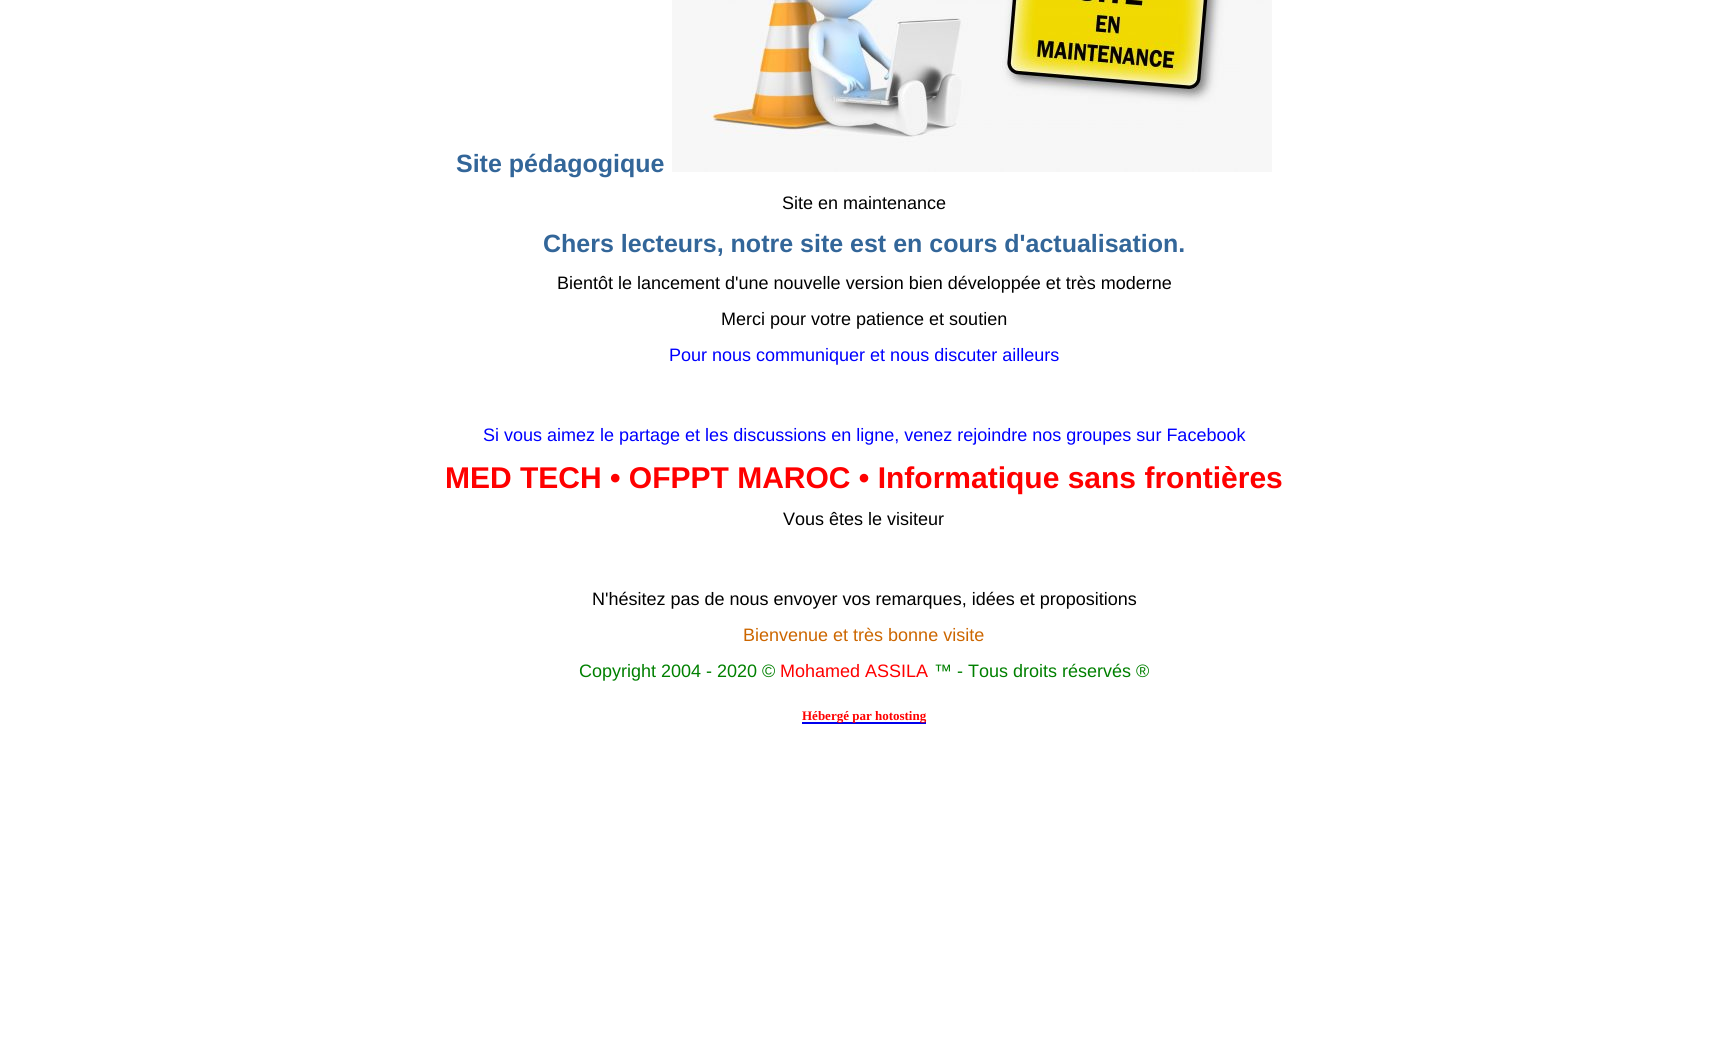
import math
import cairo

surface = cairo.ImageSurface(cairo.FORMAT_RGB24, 1728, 1043)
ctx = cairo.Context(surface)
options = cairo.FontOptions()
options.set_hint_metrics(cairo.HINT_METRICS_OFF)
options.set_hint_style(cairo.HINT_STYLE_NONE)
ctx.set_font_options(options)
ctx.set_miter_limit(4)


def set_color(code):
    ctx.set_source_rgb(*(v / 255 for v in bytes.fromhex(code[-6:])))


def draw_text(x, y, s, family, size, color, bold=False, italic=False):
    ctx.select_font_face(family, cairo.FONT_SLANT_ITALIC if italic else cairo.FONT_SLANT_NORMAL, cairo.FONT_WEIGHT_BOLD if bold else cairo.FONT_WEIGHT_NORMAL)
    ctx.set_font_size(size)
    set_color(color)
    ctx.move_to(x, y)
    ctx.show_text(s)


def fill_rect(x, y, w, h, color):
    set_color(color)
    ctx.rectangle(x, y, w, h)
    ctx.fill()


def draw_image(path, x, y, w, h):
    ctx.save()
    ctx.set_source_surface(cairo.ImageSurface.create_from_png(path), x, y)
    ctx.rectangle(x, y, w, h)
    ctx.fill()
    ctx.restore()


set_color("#ffffff")
ctx.paint()
draw_text(456, 172, "Site pédagogique", "Liberation Sans", 25, "#336699", bold=True)
draw_image("assets/img1.png", 672, 0, 600, 172)
draw_text(782, 209, "Site en maintenance", "Liberation Sans", 18, "#000000")
draw_text(543, 252, "Chers lecteurs, notre site est en cours d'actualisation.", "Liberation Sans", 25, "#336699", bold=True)
draw_text(557, 289, "Bientôt le lancement d'une nouvelle version bien développée et très moderne", "Liberation Sans", 18, "#000000")
draw_text(721, 325, "Merci pour votre patience et soutien", "Liberation Sans", 18, "#000000")
draw_text(669, 361, "Pour nous communiquer et nous discuter ailleurs", "Liberation Sans", 18, "#0000ff")
draw_text(483, 441, "Si vous aimez le partage et les discussions en ligne, venez rejoindre nos groupes sur Facebook", "Liberation Sans", 18, "#0000ff")
draw_text(445, 488, "MED TECH • OFPPT MAROC • Informatique sans frontières", "Liberation Sans", 30, "#ff0000", bold=True)
draw_text(783, 525, "Vous êtes le visiteur", "Liberation Sans", 18, "#000000")
draw_text(592, 605, "N'hésitez pas de nous envoyer vos remarques, idées et propositions", "Liberation Sans", 18, "#000000")
draw_text(743, 641, "Bienvenue et très bonne visite", "Liberation Sans", 18, "#cc6600")
draw_text(579, 677, "Copyright 2004 - 2020 ©", "Liberation Sans", 18, "#008000")
draw_text(780, 677, "Mohamed ASSILA", "Liberation Sans", 18, "#ff0000")
draw_text(934, 677, "™ - Tous droits réservés ®", "Liberation Sans", 18, "#008000")
fill_rect(802, 722, 124, 2, "#0000ee")
draw_text(802, 720, "Hébergé par hotosting", "Liberation Serif", 13, "#ff0000", bold=True)
surface.write_to_png("output.png")
